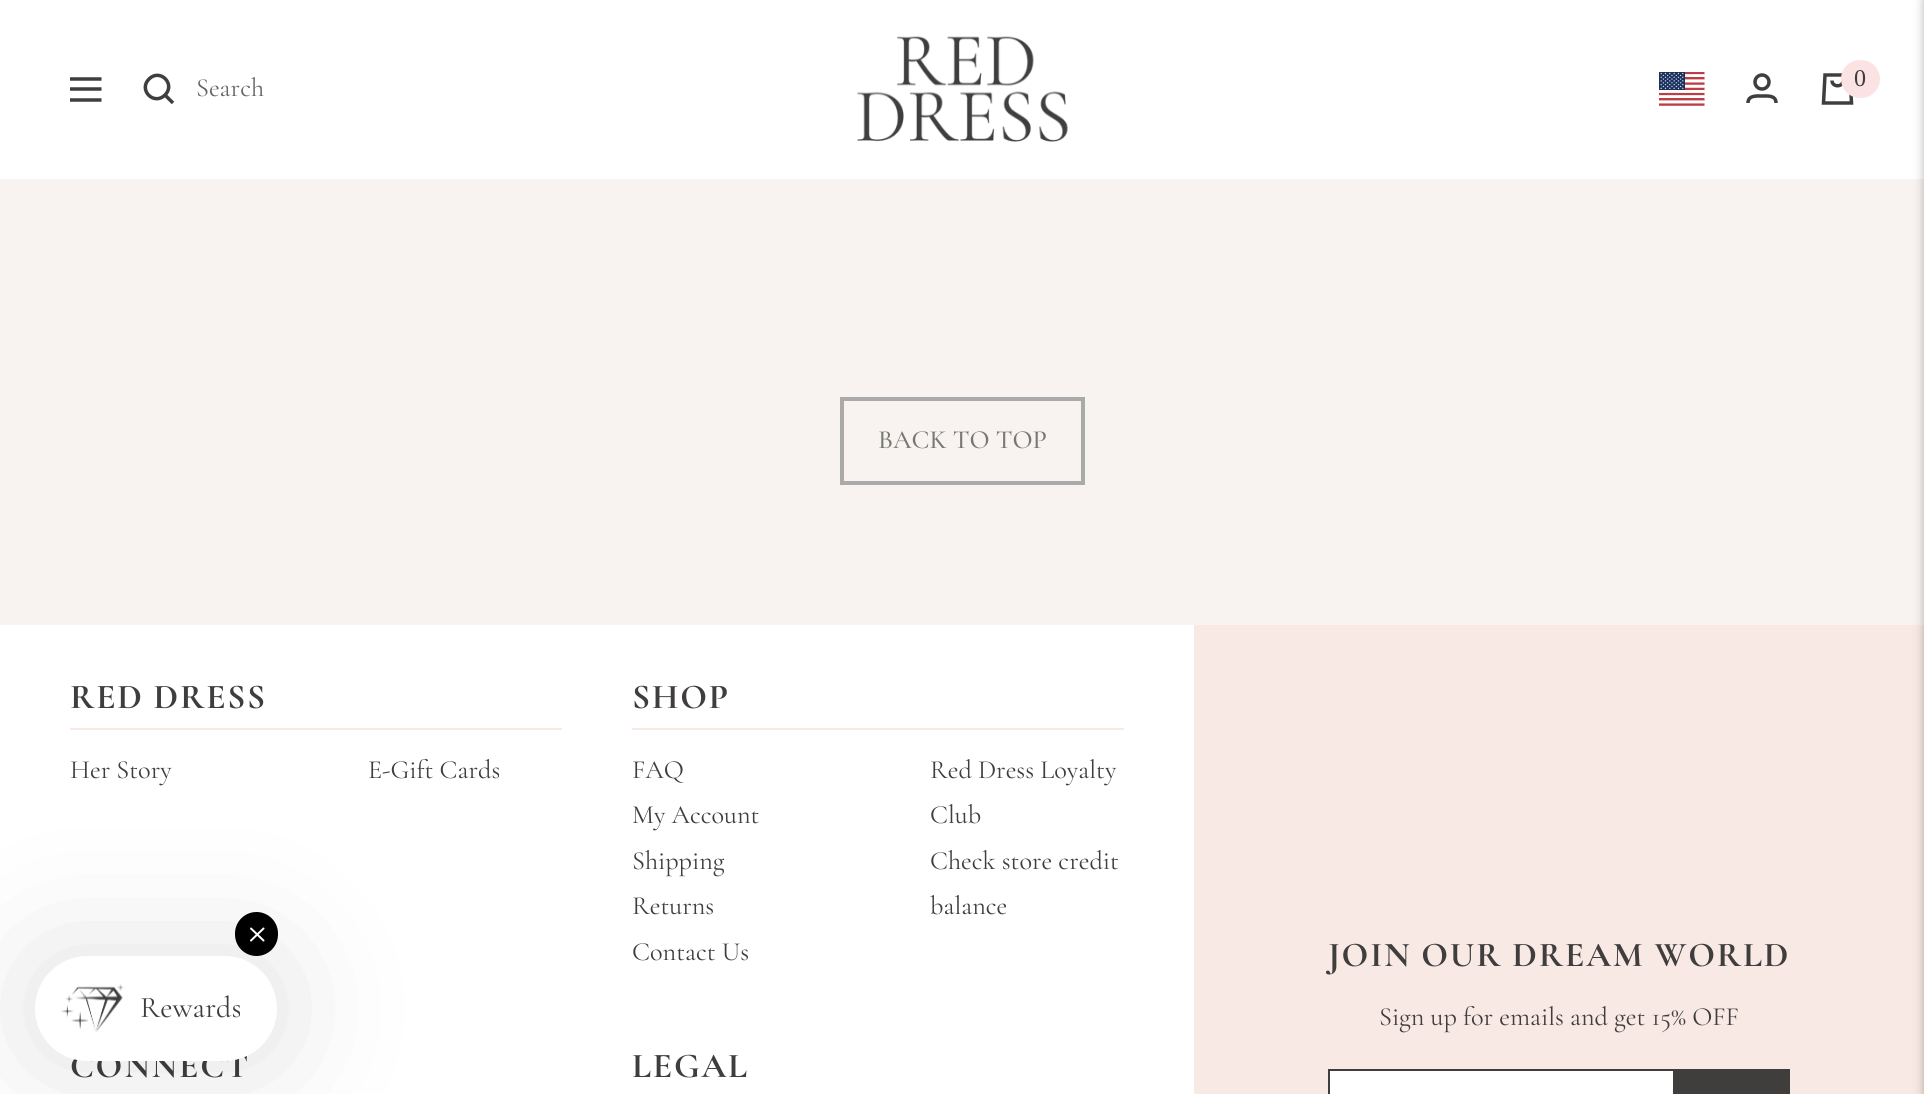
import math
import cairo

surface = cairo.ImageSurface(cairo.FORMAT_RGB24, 1924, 1094)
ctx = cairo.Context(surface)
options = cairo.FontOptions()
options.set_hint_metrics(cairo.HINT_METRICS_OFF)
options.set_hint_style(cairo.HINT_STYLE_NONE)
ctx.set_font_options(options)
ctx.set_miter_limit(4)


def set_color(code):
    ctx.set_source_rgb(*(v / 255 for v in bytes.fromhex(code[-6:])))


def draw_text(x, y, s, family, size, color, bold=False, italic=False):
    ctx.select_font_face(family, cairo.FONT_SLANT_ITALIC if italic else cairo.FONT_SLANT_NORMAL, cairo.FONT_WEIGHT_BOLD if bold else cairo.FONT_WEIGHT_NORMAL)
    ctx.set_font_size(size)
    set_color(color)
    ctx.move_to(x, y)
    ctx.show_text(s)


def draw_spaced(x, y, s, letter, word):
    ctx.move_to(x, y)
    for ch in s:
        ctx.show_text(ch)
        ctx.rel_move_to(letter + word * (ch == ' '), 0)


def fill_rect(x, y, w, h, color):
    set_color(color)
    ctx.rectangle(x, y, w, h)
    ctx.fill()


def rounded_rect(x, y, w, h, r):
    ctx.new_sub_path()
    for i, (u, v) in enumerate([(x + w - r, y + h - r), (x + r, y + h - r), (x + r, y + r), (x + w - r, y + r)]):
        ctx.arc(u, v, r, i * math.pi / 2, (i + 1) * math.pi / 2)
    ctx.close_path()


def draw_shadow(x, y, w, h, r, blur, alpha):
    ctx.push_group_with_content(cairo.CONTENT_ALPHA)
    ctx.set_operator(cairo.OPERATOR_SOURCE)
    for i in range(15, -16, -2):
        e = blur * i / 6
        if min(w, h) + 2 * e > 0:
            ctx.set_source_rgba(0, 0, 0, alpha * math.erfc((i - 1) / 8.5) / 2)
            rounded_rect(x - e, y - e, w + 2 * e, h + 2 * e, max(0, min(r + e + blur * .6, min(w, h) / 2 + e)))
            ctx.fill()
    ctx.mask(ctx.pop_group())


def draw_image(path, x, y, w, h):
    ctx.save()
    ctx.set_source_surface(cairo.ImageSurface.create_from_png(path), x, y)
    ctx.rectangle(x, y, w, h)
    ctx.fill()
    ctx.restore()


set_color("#f8f3f0")
ctx.paint()
fill_rect(0, 0, 1924, 179, "#ffffff")
ctx.new_path()
ctx.move_to(70, 79)
ctx.line_to(101.5, 79)
ctx.move_to(70, 100)
ctx.line_to(101.5, 100)
ctx.close_path()
ctx.move_to(70, 89)
ctx.line_to(101.5, 89)
ctx.close_path()
set_color("#403d3d")
ctx.set_line_width(3.5)
ctx.stroke()
ctx.new_path()
ctx.move_to(165, 95)
ctx.curve_to(176, 84, 160, 68, 149, 79)
ctx.curve_to(138, 90, 154, 106, 165, 95)
ctx.close_path()
ctx.move_to(165, 95)
ctx.line_to(173, 103)
ctx.stroke()
draw_text(196, 96, "Search", "Cormorant Garamond Light", 26.25, "#666464")
draw_image("assets/img1.png", 857, 36, 211, 106)
draw_image("assets/img2.png", 1659, 72, 46, 34)
ctx.arc(1762, 82, 7, 0, 2 * math.pi)
set_color("#403d3d")
ctx.stroke()
ctx.new_path()
ctx.move_to(1748, 103)
ctx.curve_to(1748, 95, 1757, 96, 1762, 96)
ctx.curve_to(1767.5, 96, 1776, 95, 1776, 103)
ctx.stroke()
ctx.new_path()
ctx.move_to(1825, 75)
ctx.line_to(1850, 75)
ctx.line_to(1851.5, 103)
ctx.line_to(1823.5, 103)
ctx.close_path()
ctx.move_to(1832, 80.5)
ctx.curve_to(1832, 87.5, 1843, 87.5, 1843, 80.5)
ctx.stroke()
set_color("#fbe3e3")
rounded_rect(1841, 60, 39, 38, 19)
ctx.fill()
draw_text(1854, 86, "0", "Liberation Serif", 24, "#403d3d")
fill_rect(1194, 625, 730, 469, "#f8e9e4")
set_color("#000000")
draw_shadow(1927, 0, 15, 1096, 0, 6, 0.5)
ctx.rectangle(842, 399, 241, 84)
set_color("#aaaaaa")
ctx.set_line_width(4)
ctx.stroke()
draw_text(878, 448, "BACK TO TOP", "Cormorant Garamond Medium", 26.25, "#777873")
fill_rect(0, 625, 1194, 469, "#ffffff")
fill_rect(70, 728, 492, 2, "#f8e9e4")
ctx.select_font_face("Cormorant Garamond", cairo.FONT_SLANT_NORMAL, cairo.FONT_WEIGHT_BOLD)
ctx.set_font_size(35)
set_color("#403d3d")
draw_spaced(70, 708, "RED DRESS", 1.75, 0)
draw_text(70, 778, "Her Story", "Cormorant Garamond Light", 26.25, "#403d3d")
draw_text(368, 778, "E-Gift Cards", "Cormorant Garamond Light", 26.25, "#403d3d")
fill_rect(632, 728, 492, 2, "#f8e9e4")
ctx.select_font_face("Cormorant Garamond", cairo.FONT_SLANT_NORMAL, cairo.FONT_WEIGHT_BOLD)
ctx.set_font_size(35)
set_color("#403d3d")
draw_spaced(632, 708, "SHOP", 1.75, 0)
draw_text(632, 778, "FAQ", "Cormorant Garamond Light", 26.25, "#403d3d")
draw_text(930, 778, "Red Dress Loyalty", "Cormorant Garamond Light", 26.25, "#403d3d")
draw_text(930, 823, "Club", "Cormorant Garamond Light", 26.25, "#403d3d")
draw_text(632, 823, "My Account", "Cormorant Garamond Light", 26.25, "#403d3d")
draw_text(632, 869, "Shipping", "Cormorant Garamond Light", 26.25, "#403d3d")
draw_text(930, 869, "Check store credit", "Cormorant Garamond Light", 26.25, "#403d3d")
draw_text(930, 914, "balance", "Cormorant Garamond Light", 26.25, "#403d3d")
draw_text(632, 914, "Returns", "Cormorant Garamond Light", 26.25, "#403d3d")
draw_text(632, 960, "Contact Us", "Cormorant Garamond Light", 26.25, "#403d3d")
ctx.select_font_face("Cormorant Garamond", cairo.FONT_SLANT_NORMAL, cairo.FONT_WEIGHT_BOLD)
ctx.set_font_size(35)
draw_spaced(70, 1077, "CONNECT", 1.75, 0)
draw_spaced(632, 1077, "LEGAL", 1.75, 0)
draw_spaced(1328, 966, "JOIN OUR DREAM WORLD", 1.75, 0)
draw_text(1379, 1025, "Sign up for emails and get 15% OFF", "Cormorant Garamond Light", 26.25, "#403d3d")
set_color("#ffffff")
ctx.rectangle(1329, 1070, 345, 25)
ctx.fill_preserve()
set_color("#403d3d")
ctx.set_line_width(2)
ctx.stroke()
fill_rect(1675, 1069, 115, 25, "#403d3d")
set_color("#000000")
draw_shadow(35, 956, 242, 105, 52.5, 70, 0.12)
set_color("#000000")
rounded_rect(235, 912, 43, 44, 21.5)
ctx.fill()
ctx.new_path()
ctx.move_to(263.5, 928.5)
ctx.line_to(251, 940.5)
ctx.move_to(251, 928.5)
ctx.line_to(263.5, 940.5)
set_color("#ffffff")
ctx.set_line_cap(cairo.LINE_CAP_ROUND)
ctx.set_line_join(cairo.LINE_JOIN_ROUND)
ctx.stroke()
rounded_rect(35, 956, 242, 105, 52.5)
ctx.fill()
draw_image("assets/img3.png", 61, 984, 63, 49)
draw_text(140, 1017, "Rewards", "Cormorant Garamond Light", 30, "#403d3d")
surface.write_to_png("output.png")
